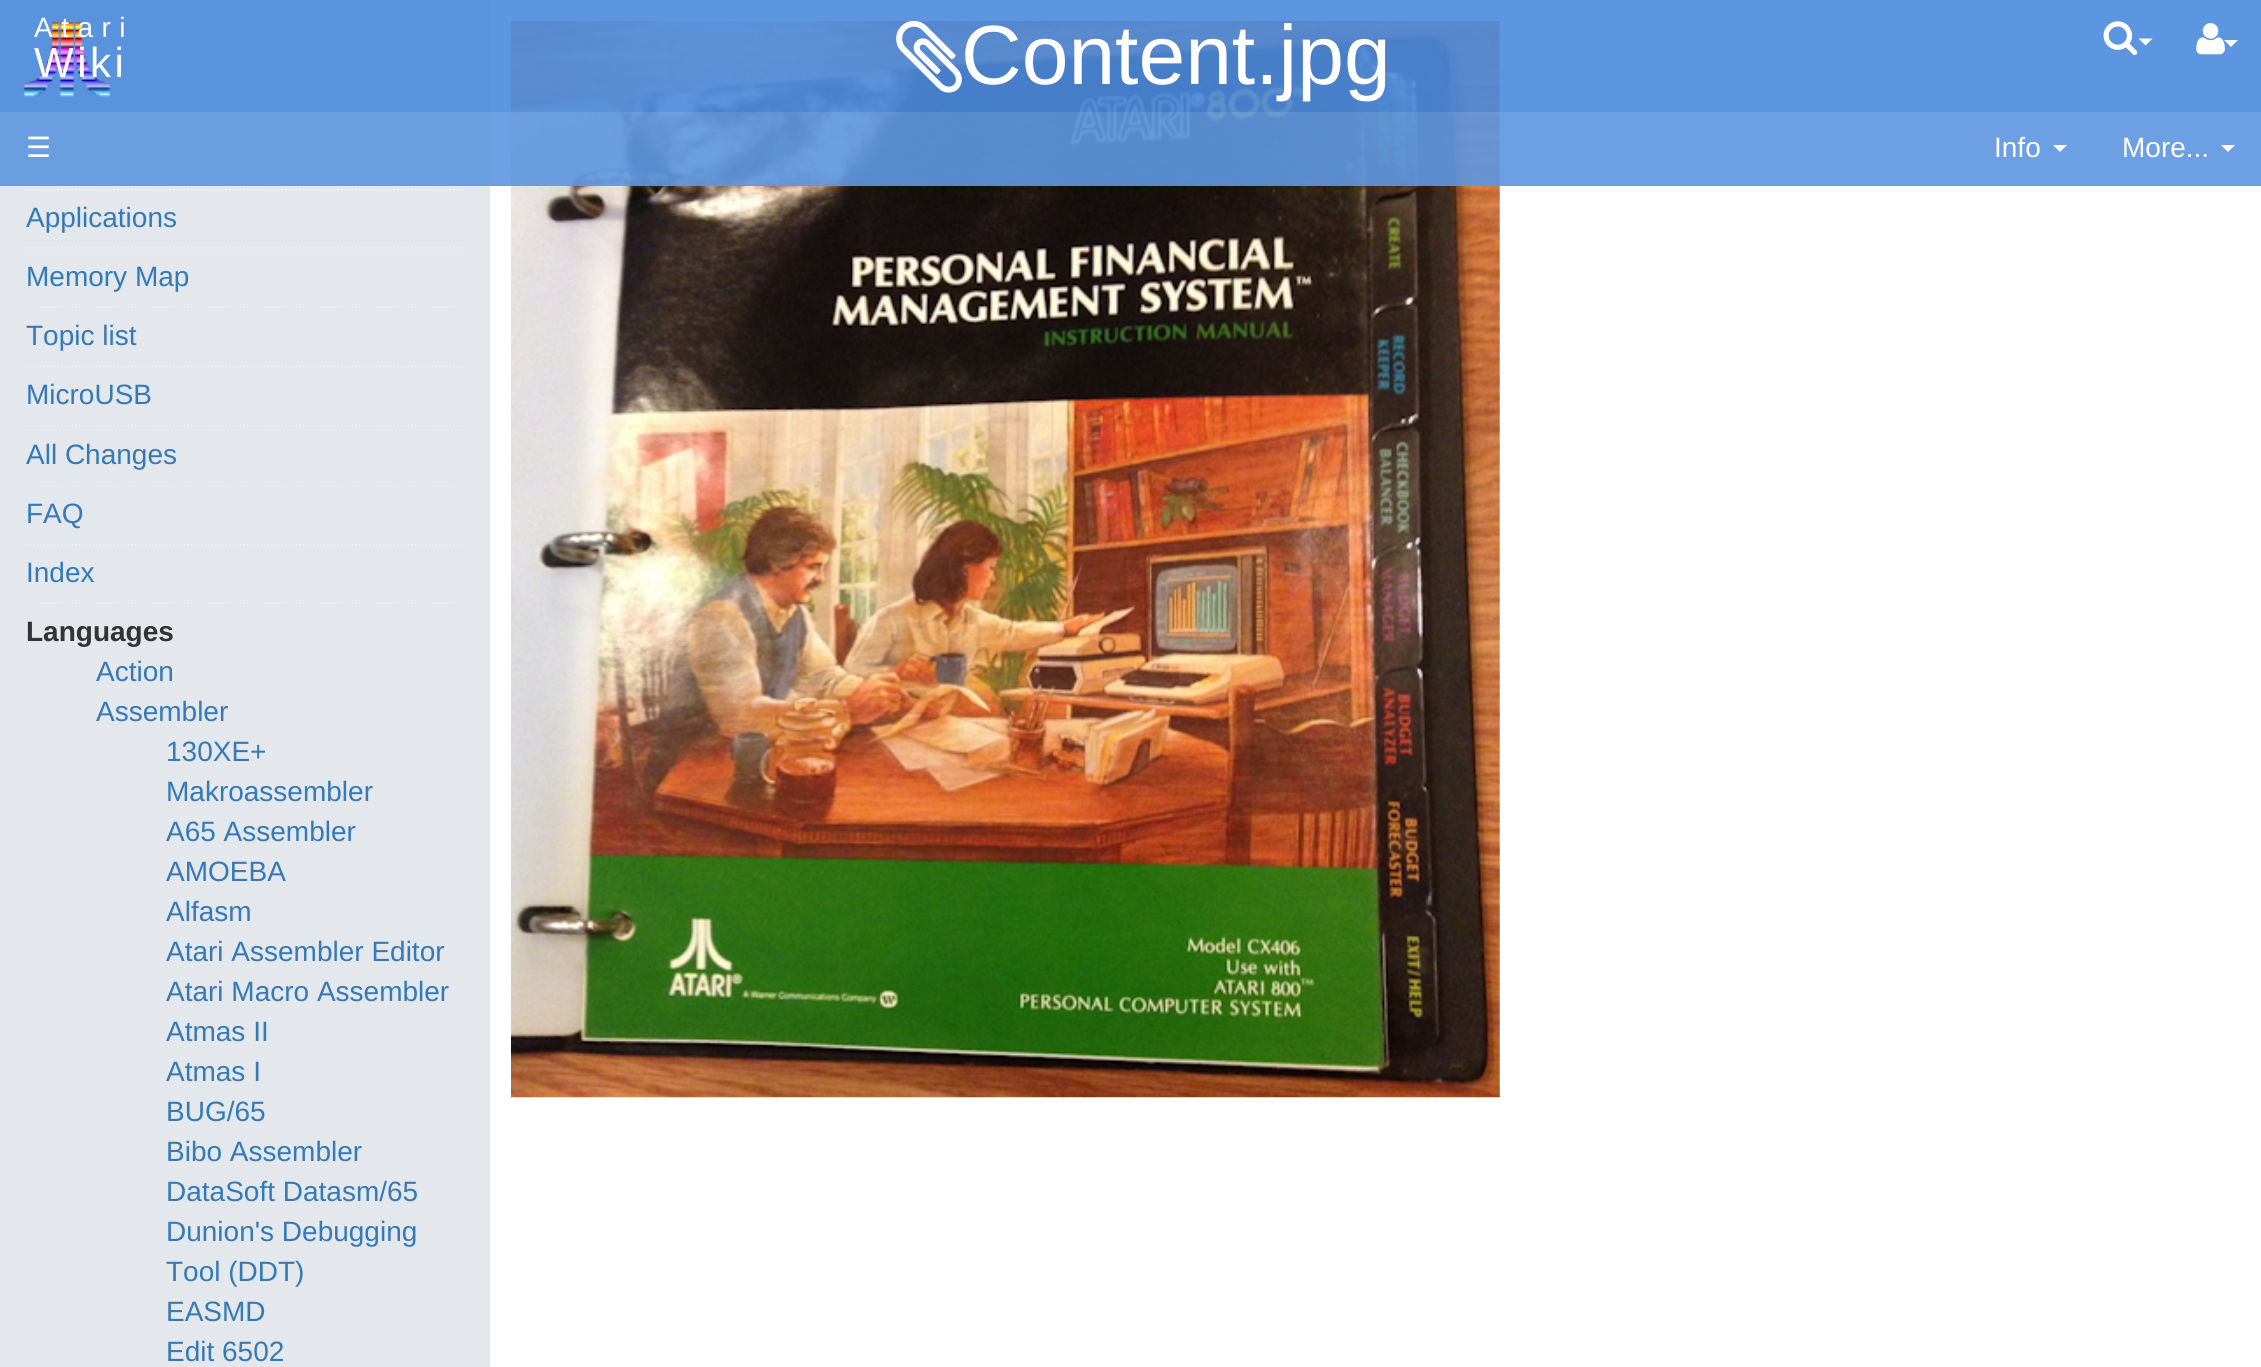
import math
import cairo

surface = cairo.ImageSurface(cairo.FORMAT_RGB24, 2261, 1367)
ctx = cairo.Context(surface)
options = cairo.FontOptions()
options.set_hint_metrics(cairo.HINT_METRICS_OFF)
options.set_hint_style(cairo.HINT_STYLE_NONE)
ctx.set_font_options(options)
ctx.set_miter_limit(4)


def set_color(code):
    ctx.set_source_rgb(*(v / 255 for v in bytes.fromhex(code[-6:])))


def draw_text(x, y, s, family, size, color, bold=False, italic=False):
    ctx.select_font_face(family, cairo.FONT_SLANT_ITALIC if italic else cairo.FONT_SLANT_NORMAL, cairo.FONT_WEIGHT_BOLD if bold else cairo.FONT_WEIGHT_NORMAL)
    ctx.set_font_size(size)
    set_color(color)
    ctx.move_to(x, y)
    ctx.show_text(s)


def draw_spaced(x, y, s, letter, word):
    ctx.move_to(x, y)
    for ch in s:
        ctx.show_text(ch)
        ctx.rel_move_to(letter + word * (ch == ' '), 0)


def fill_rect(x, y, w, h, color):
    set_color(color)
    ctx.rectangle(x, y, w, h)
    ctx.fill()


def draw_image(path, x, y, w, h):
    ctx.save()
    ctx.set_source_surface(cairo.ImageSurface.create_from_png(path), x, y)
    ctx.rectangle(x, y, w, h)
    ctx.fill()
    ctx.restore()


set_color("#ffffff")
ctx.paint()
fill_rect(0, 0, 490, 1367, "#e4e7ec")
draw_image("assets/img5.png", 511, 21, 989, 1077)
ctx.new_path()
ctx.move_to(26, 71)
ctx.line_to(464, 71)
set_color("#eeeeee")
ctx.set_line_width(1.8)
ctx.set_dash([1.75, 1.75])
ctx.stroke()
ctx.new_path()
ctx.move_to(26, 130.5)
ctx.line_to(464, 130.5)
ctx.stroke()
ctx.set_source_rgba(0.294, 0.541, 0.867, 0.9)
ctx.rectangle(0, 0, 2261, 186)
ctx.fill()
draw_image("assets/img1.png", 23, 21, 88, 76)
ctx.select_font_face("Liberation Sans")
ctx.set_font_size(28)
set_color("#ffffff")
draw_spaced(34, 37, "Atari", 8.5, 0)
ctx.set_font_size(42)
draw_spaced(34, 77, "Wiki", 3.5, 0)
draw_image("assets/img2.png", 896, 21, 66, 72)
draw_text(961, 84, "Content.jpg", "Liberation Sans", 84, "#ffffff")
draw_image("assets/img3.png", 2103, 21, 35, 35)
ctx.new_path()
ctx.move_to(2138.5, 38.5)
ctx.line_to(2152.5, 38.5)
ctx.line_to(2145.5, 45.5)
ctx.close_path()
ctx.fill()
ctx.new_path()
ctx.move_to(2224, 40)
ctx.line_to(2238, 40)
ctx.line_to(2231, 47)
ctx.close_path()
ctx.fill()
draw_image("assets/img4.png", 2196, 23, 29, 32)
ctx.set_source_rgba(1, 1, 1, 0.1)
ctx.rectangle(0, 112, 2261, 74)
ctx.fill()
draw_text(26, 157, "☰", "DejaVu Sans", 28, "#ffffff")
draw_text(1994, 157, "Info", "Liberation Sans", 28, "#ffffff")
ctx.new_path()
ctx.move_to(2053, 145)
ctx.line_to(2067, 145)
ctx.line_to(2060, 152)
ctx.close_path()
ctx.fill()
draw_text(2122, 157, "More...", "Liberation Sans", 28, "#ffffff")
ctx.new_path()
ctx.move_to(2221, 145)
ctx.line_to(2235, 145)
ctx.line_to(2228, 152)
ctx.close_path()
ctx.fill()
ctx.new_path()
ctx.move_to(26, 190)
ctx.line_to(464, 190)
set_color("#eeeeee")
ctx.stroke()
draw_text(26, 227, "Applications", "Liberation Sans", 28, "#337ab7")
ctx.new_path()
ctx.move_to(26, 247.5)
ctx.line_to(464, 247.5)
set_color("#eeeeee")
ctx.stroke()
draw_text(26, 286, "Memory Map", "Liberation Sans", 28, "#337ab7")
ctx.new_path()
ctx.move_to(26, 307)
ctx.line_to(464, 307)
set_color("#eeeeee")
ctx.stroke()
draw_text(26, 345, "Topic list", "Liberation Sans", 28, "#337ab7")
ctx.new_path()
ctx.move_to(26, 366.5)
ctx.line_to(464, 366.5)
set_color("#eeeeee")
ctx.stroke()
draw_text(26, 404, "MicroUSB", "Liberation Sans", 28, "#337ab7")
ctx.new_path()
ctx.move_to(26, 426)
ctx.line_to(464, 426)
set_color("#eeeeee")
ctx.stroke()
draw_text(26, 464, "All Changes", "Liberation Sans", 28, "#337ab7")
ctx.new_path()
ctx.move_to(26, 485.5)
ctx.line_to(464, 485.5)
set_color("#eeeeee")
ctx.stroke()
draw_text(26, 523, "FAQ", "Liberation Sans", 28, "#337ab7")
ctx.new_path()
ctx.move_to(26, 545)
ctx.line_to(464, 545)
set_color("#eeeeee")
ctx.stroke()
draw_text(26, 582, "Index", "Liberation Sans", 28, "#337ab7")
ctx.new_path()
ctx.move_to(26, 603)
ctx.line_to(464, 603)
set_color("#eeeeee")
ctx.stroke()
draw_text(26, 641, "Languages", "Liberation Sans", 28, "#333333", bold=True)
draw_text(96, 681, "Action", "Liberation Sans", 28, "#337ab7")
draw_text(96, 721, "Assembler", "Liberation Sans", 28, "#337ab7")
draw_text(166, 761, "130XE+", "Liberation Sans", 28, "#337ab7")
draw_text(166, 801, "Makroassembler", "Liberation Sans", 28, "#337ab7")
draw_text(166, 841, "A65 Assembler", "Liberation Sans", 28, "#337ab7")
draw_text(166, 881, "AMOEBA", "Liberation Sans", 28, "#337ab7")
draw_text(166, 921, "Alfasm", "Liberation Sans", 28, "#337ab7")
draw_text(166, 961, "Atari Assembler Editor", "Liberation Sans", 28, "#337ab7")
draw_text(166, 1001, "Atari Macro Assembler", "Liberation Sans", 28, "#337ab7")
draw_text(166, 1041, "Atmas II", "Liberation Sans", 28, "#337ab7")
draw_text(166, 1081, "Atmas I", "Liberation Sans", 28, "#337ab7")
draw_text(166, 1121, "BUG/65", "Liberation Sans", 28, "#337ab7")
draw_text(166, 1161, "Bibo Assembler", "Liberation Sans", 28, "#337ab7")
draw_text(166, 1201, "DataSoft Datasm/65", "Liberation Sans", 28, "#337ab7")
draw_text(166, 1241, "Dunion's Debugging", "Liberation Sans", 28, "#337ab7")
draw_text(166, 1281, "Tool (DDT)", "Liberation Sans", 28, "#337ab7")
draw_text(166, 1321, "EASMD", "Liberation Sans", 28, "#337ab7")
draw_text(166, 1361, "Edit 6502", "Liberation Sans", 28, "#337ab7")
surface.write_to_png("output.png")
